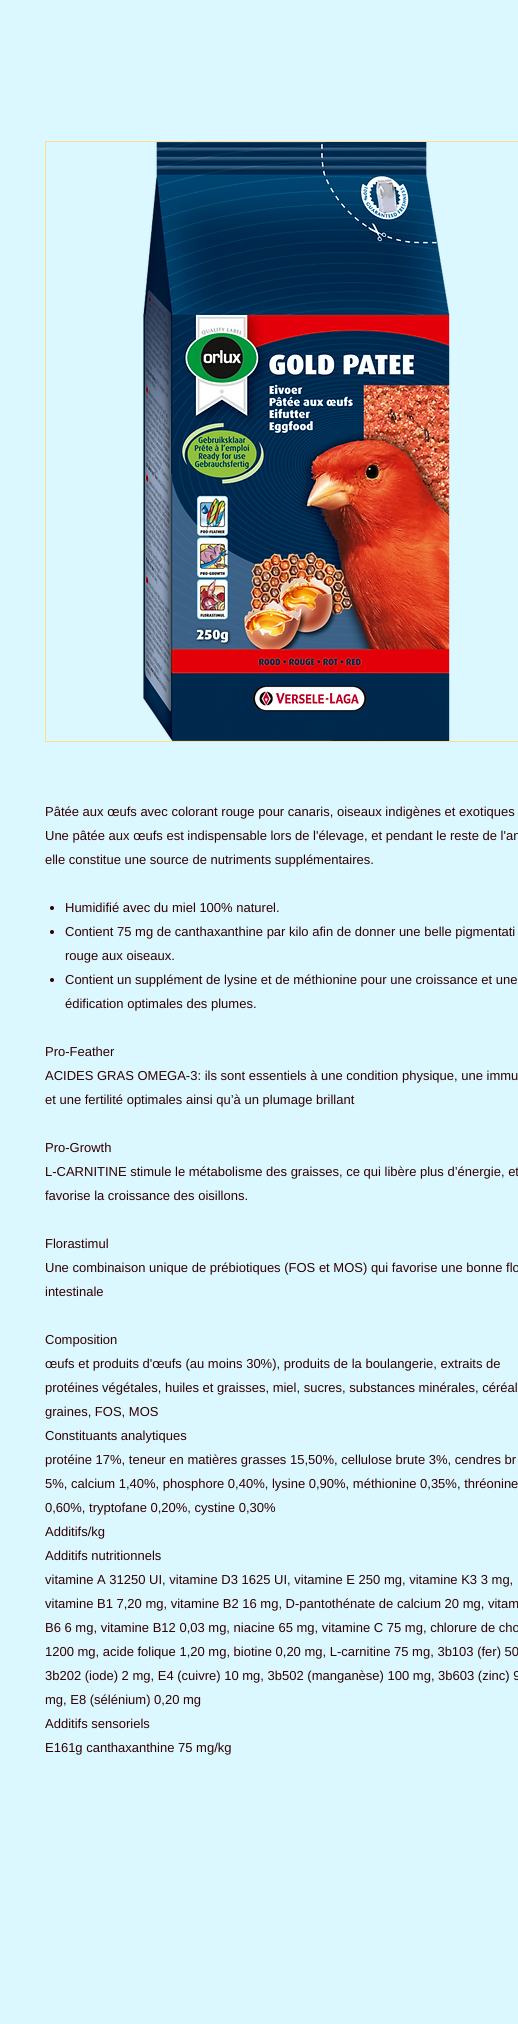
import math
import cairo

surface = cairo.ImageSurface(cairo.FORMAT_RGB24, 518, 2024)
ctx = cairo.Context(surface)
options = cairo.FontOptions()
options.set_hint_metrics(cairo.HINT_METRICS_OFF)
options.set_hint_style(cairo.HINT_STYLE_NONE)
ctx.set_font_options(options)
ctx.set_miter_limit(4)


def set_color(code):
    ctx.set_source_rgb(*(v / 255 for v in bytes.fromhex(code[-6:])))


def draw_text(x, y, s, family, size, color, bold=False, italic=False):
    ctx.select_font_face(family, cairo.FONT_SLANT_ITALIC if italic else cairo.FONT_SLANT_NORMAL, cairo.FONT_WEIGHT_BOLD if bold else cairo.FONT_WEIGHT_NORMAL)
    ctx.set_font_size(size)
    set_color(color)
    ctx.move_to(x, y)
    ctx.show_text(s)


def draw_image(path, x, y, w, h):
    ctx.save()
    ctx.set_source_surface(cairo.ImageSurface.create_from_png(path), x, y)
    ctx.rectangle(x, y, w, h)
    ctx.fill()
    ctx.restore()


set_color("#dbf7ff")
ctx.paint()
ctx.rectangle(45.5, 141.5, 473, 600)
set_color("#ffdb90")
ctx.set_line_width(1)
ctx.stroke()
draw_image("assets/img1.png", 143, 142, 307, 599)
draw_text(45, 816, "Pâtée aux œufs avec colorant rouge pour canaris, oiseaux indigènes et exotiques", "Liberation Sans", 13, "#310000")
draw_text(45, 840, "Une pâtée aux œufs est indispensable lors de l'élevage, et pendant le reste de l'an", "Liberation Sans", 13, "#310000")
draw_text(45, 864, "elle constitue une source de nutriments supplémentaires.", "Liberation Sans", 13, "#310000")
ctx.new_path()
ctx.arc(52, 908, 2, 0, 2 * math.pi)
ctx.fill()
draw_text(65, 912, "Humidifié avec du miel 100% naturel.", "Liberation Sans", 13, "#310000")
ctx.new_path()
ctx.arc(52, 932, 2, 0, 2 * math.pi)
ctx.fill()
draw_text(65, 936, "Contient 75 mg de canthaxanthine par kilo afin de donner une belle pigmentati", "Liberation Sans", 13, "#310000")
draw_text(65, 960, "rouge aux oiseaux.", "Liberation Sans", 13, "#310000")
ctx.new_path()
ctx.arc(52, 980, 2, 0, 2 * math.pi)
ctx.fill()
draw_text(65, 984, "Contient un supplément de lysine et de méthionine pour une croissance et une", "Liberation Sans", 13, "#310000")
draw_text(65, 1008, "édification optimales des plumes.", "Liberation Sans", 13, "#310000")
draw_text(45, 1056, "Pro-Feather", "Liberation Sans", 13, "#310000")
draw_text(45, 1080, "ACIDES GRAS OMEGA-3: ils sont essentiels à une condition physique, une immu", "Liberation Sans", 13, "#310000")
draw_text(45, 1104, "et une fertilité optimales ainsi qu’à un plumage brillant", "Liberation Sans", 13, "#310000")
draw_text(45, 1152, "Pro-Growth", "Liberation Sans", 13, "#310000")
draw_text(45, 1176, "L-CARNITINE stimule le métabolisme des graisses, ce qui libère plus d’énergie, et", "Liberation Sans", 13, "#310000")
draw_text(45, 1200, "favorise la croissance des oisillons.", "Liberation Sans", 13, "#310000")
draw_text(45, 1248, "Florastimul", "Liberation Sans", 13, "#310000")
draw_text(45, 1272, "Une combinaison unique de prébiotiques (FOS et MOS) qui favorise une bonne flo", "Liberation Sans", 13, "#310000")
draw_text(45, 1296, "intestinale", "Liberation Sans", 13, "#310000")
draw_text(45, 1344, "Composition", "Liberation Sans", 13, "#310000")
draw_text(45, 1368, "œufs et produits d'œufs (au moins 30%), produits de la boulangerie, extraits de", "Liberation Sans", 13, "#310000")
draw_text(45, 1392, "protéines végétales, huiles et graisses, miel, sucres, substances minérales, céréal", "Liberation Sans", 13, "#310000")
draw_text(45, 1416, "graines, FOS, MOS", "Liberation Sans", 13, "#310000")
draw_text(45, 1440, "Constituants analytiques", "Liberation Sans", 13, "#310000")
draw_text(45, 1464, "protéine 17%, teneur en matières grasses 15,50%, cellulose brute 3%, cendres br", "Liberation Sans", 13, "#310000")
draw_text(45, 1488, "5%, calcium 1,40%, phosphore 0,40%, lysine 0,90%, méthionine 0,35%, thréonine", "Liberation Sans", 13, "#310000")
draw_text(45, 1512, "0,60%, tryptofane 0,20%, cystine 0,30%", "Liberation Sans", 13, "#310000")
draw_text(45, 1536, "Additifs/kg", "Liberation Sans", 13, "#310000")
draw_text(45, 1560, "Additifs nutritionnels", "Liberation Sans", 13, "#310000")
draw_text(45, 1584, "vitamine A 31250 UI, vitamine D3 1625 UI, vitamine E 250 mg, vitamine K3 3 mg,", "Liberation Sans", 13, "#310000")
draw_text(45, 1608, "vitamine B1 7,20 mg, vitamine B2 16 mg, D-pantothénate de calcium 20 mg, vitam", "Liberation Sans", 13, "#310000")
draw_text(45, 1632, "B6 6 mg, vitamine B12 0,03 mg, niacine 65 mg, vitamine C 75 mg, chlorure de cho", "Liberation Sans", 13, "#310000")
draw_text(45, 1656, "1200 mg, acide folique 1,20 mg, biotine 0,20 mg, L-carnitine 75 mg, 3b103 (fer) 50", "Liberation Sans", 13, "#310000")
draw_text(45, 1680, "3b202 (iode) 2 mg, E4 (cuivre) 10 mg, 3b502 (manganèse) 100 mg, 3b603 (zinc) 9", "Liberation Sans", 13, "#310000")
draw_text(45, 1704, "mg, E8 (sélénium) 0,20 mg", "Liberation Sans", 13, "#310000")
draw_text(45, 1728, "Additifs sensoriels", "Liberation Sans", 13, "#310000")
draw_text(45, 1752, "E161g canthaxanthine 75 mg/kg", "Liberation Sans", 13, "#310000")
surface.write_to_png("output.png")
